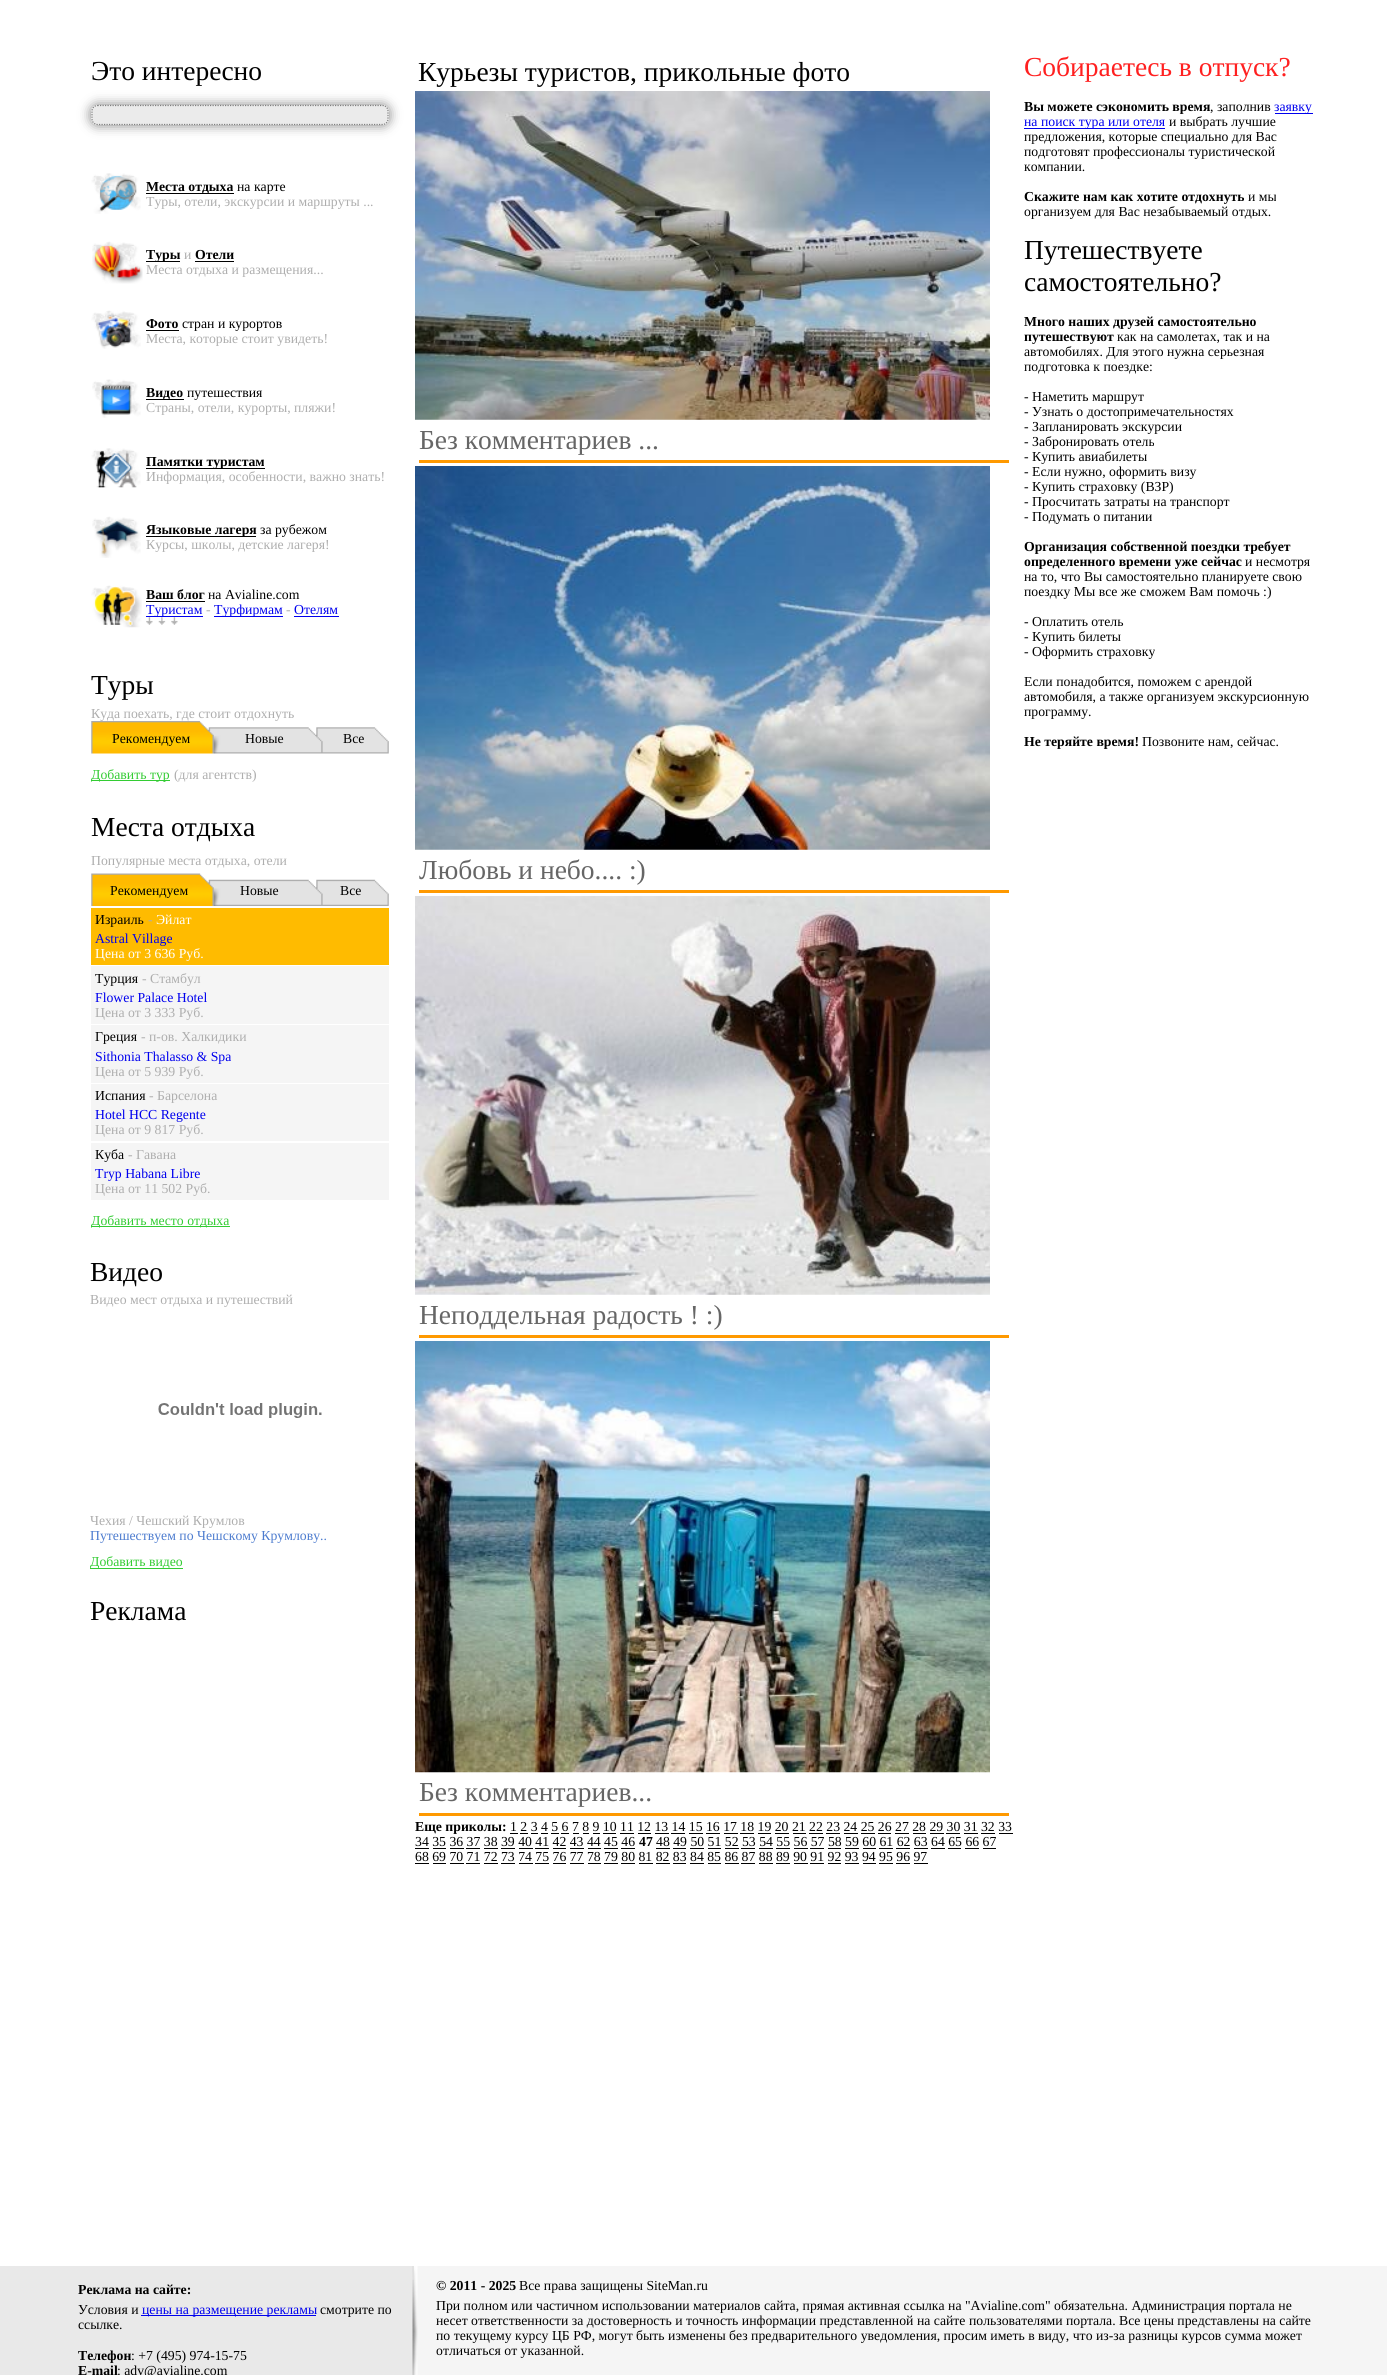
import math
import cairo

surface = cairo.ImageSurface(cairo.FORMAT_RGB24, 1387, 2375)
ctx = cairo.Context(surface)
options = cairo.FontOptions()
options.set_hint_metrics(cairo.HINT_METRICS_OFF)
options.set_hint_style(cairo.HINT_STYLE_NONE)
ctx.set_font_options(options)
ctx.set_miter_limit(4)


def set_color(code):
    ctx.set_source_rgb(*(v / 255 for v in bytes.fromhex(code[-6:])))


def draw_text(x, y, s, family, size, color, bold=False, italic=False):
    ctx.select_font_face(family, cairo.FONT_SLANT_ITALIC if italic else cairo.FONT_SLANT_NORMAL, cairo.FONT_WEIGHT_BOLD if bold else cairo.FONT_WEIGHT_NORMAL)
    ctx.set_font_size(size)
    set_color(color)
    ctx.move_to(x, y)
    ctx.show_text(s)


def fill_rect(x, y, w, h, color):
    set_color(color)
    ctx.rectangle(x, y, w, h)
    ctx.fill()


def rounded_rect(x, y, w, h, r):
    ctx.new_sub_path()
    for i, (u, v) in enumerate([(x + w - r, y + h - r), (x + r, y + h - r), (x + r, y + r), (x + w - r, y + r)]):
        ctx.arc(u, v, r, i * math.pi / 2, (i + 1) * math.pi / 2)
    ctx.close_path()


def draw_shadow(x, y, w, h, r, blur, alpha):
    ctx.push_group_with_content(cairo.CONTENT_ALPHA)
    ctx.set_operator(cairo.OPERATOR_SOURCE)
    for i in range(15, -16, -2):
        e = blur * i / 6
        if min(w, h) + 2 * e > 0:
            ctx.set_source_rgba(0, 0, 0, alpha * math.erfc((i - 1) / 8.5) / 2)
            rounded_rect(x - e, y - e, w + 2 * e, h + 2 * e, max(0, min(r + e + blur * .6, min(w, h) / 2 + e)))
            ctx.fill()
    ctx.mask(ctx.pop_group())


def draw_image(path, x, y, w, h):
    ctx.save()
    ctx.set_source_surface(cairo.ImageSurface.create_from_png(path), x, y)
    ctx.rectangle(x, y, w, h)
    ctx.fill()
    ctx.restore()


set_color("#ffffff")
ctx.paint()
draw_text(91, 80, "Это интересно", "Liberation Serif", 27.5, "#000000")
set_color("#000000")
draw_shadow(91, 105, 298, 20, 6, 6, 0.5)
set_color("#ebebeb")
rounded_rect(91, 105, 298, 20, 6)
ctx.fill()
ctx.new_path()
ctx.move_to(97.5, 105.5)
ctx.line_to(382.5, 105.5)
ctx.curve_to(385.5, 105.5, 388, 108, 388, 111)
ctx.line_to(388, 119)
ctx.curve_to(388, 122, 385.5, 124.5, 382.5, 124.5)
ctx.line_to(97.5, 124.5)
ctx.curve_to(94.5, 124.5, 92, 122, 92, 119)
ctx.line_to(92, 111)
ctx.curve_to(92, 108, 94.5, 105.5, 97.5, 105.5)
ctx.close_path()
set_color("#808080")
ctx.set_line_width(1.2)
ctx.set_dash([1.25, 1.25])
ctx.stroke()
draw_image("assets/img1.png", 91, 173, 50, 41)
fill_rect(146, 193, 88, 1, "#000000")
draw_text(146, 191, "Места отдыха", "Liberation Serif", 13.75, "#000000", bold=True)
draw_text(237, 191, "на карте", "Liberation Serif", 13.75, "#000000")
draw_text(146, 206, "Туры, отели, экскурсии и маршруты ...", "Liberation Serif", 13.75, "#aeaeae")
draw_image("assets/img2.png", 92, 241, 51, 43)
fill_rect(146, 261, 34, 1, "#000000")
draw_text(146, 259, "Туры", "Liberation Serif", 13.75, "#000000", bold=True)
draw_text(184, 259, "и", "Liberation Serif", 13.75, "#aeaeae")
draw_text(195, 259, "Отели", "Liberation Serif", 13.75, "#000000", bold=True)
fill_rect(195, 261, 39, 1, "#000000")
draw_text(146, 274, "Места отдыха и размещения...", "Liberation Serif", 13.75, "#aeaeae")
draw_image("assets/img3.png", 91, 310, 50, 39)
draw_text(146, 328, "Фото", "Liberation Serif", 13.75, "#000000", bold=True)
draw_text(182, 328, "стран и курортов", "Liberation Serif", 13.75, "#000000")
fill_rect(146, 330, 33, 1, "#000000")
draw_text(146, 343, "Места, которые стоит увидеть!", "Liberation Serif", 13.75, "#aeaeae")
draw_image("assets/img4.png", 92, 379, 49, 39)
fill_rect(146, 399, 38, 1, "#000000")
draw_text(146, 397, "Видео", "Liberation Serif", 13.75, "#000000", bold=True)
draw_text(187, 397, "путешествия", "Liberation Serif", 13.75, "#000000")
draw_text(146, 412, "Страны, отели, курорты, пляжи!", "Liberation Serif", 13.75, "#aeaeae")
draw_image("assets/img5.png", 91, 448, 50, 40)
fill_rect(146, 468, 119, 1, "#000000")
draw_text(146, 466, "Памятки туристам", "Liberation Serif", 13.75, "#000000", bold=True)
draw_text(146, 481, "Информация, особенности, важно знать!", "Liberation Serif", 13.75, "#aeaeae")
draw_image("assets/img6.png", 92, 516, 49, 42)
fill_rect(146, 536, 110, 1, "#000000")
draw_text(146, 534, "Языковые лагеря", "Liberation Serif", 13.75, "#000000", bold=True)
draw_text(260, 534, "за рубежом", "Liberation Serif", 13.75, "#000000")
draw_text(146, 549, "Курсы, школы, детские лагеря!", "Liberation Serif", 13.75, "#aeaeae")
draw_image("assets/img7.png", 91, 585, 51, 43)
draw_text(146, 599, "Ваш блог", "Liberation Serif", 13.75, "#000000", bold=True)
fill_rect(146, 601, 59, 1, "#000000")
draw_text(208, 599, "на Avialine.com", "Liberation Serif", 13.75, "#000000")
fill_rect(146, 616, 57, 1, "#0000ee")
draw_text(146, 614, "Туристам", "Liberation Serif", 13.75, "#0000ee")
draw_text(206, 614, "-", "Liberation Serif", 13.75, "#aeaeae")
fill_rect(214, 616, 69, 1, "#0000ee")
draw_text(214, 614, "Турфирмам", "Liberation Serif", 13.75, "#0000ee")
draw_text(286, 614, "-", "Liberation Serif", 13.75, "#aeaeae")
draw_text(294, 614, "Отелям", "Liberation Serif", 13.75, "#0000ee")
fill_rect(294, 616, 45, 1, "#0000ee")
draw_image("assets/img8.png", 146, 617, 32, 8)
draw_text(91, 694, "Туры", "Liberation Serif", 27.5, "#000000")
draw_text(91, 718, "Куда поехать, где стоит отдохнуть", "Liberation Serif", 13.75, "#aeaeae")
draw_image("assets/img9.png", 91, 721, 298, 33)
draw_text(112, 743, "Рекомендуем", "Liberation Serif", 13.75, "#000000")
draw_text(245, 743, "Новые", "Liberation Serif", 13.75, "#000000")
draw_text(343, 743, "Все", "Liberation Serif", 13.75, "#000000")
fill_rect(91, 780, 79, 1, "#33cc33")
draw_text(91, 779, "Добавить тур", "Liberation Serif", 13.75, "#33cc33")
draw_text(174, 779, "(для агентств)", "Liberation Serif", 13.75, "#aeaeae")
draw_text(91, 836, "Места отдыха", "Liberation Serif", 27.5, "#000000")
draw_text(91, 865, "Популярные места отдыха, отели", "Liberation Serif", 13.75, "#aeaeae")
draw_image("assets/img10.png", 91, 873, 298, 33)
draw_text(110, 895, "Рекомендуем", "Liberation Serif", 13.75, "#000000")
draw_text(240, 895, "Новые", "Liberation Serif", 13.75, "#000000")
draw_text(340, 895, "Все", "Liberation Serif", 13.75, "#000000")
fill_rect(91, 908, 298, 57, "#ffbb00")
draw_text(95, 924, "Израиль", "Liberation Serif", 13.75, "#000000")
draw_text(148, 924, "-", "Liberation Serif", 13.75, "#aeaeae")
draw_text(156, 924, "Эйлат", "Liberation Serif", 13.75, "#ffffff")
draw_text(95, 943, "Astral Village", "Liberation Serif", 13.75, "#0000ee")
draw_text(95, 958, "Цена от 3 636 Руб.", "Liberation Serif", 13.75, "#ffffff")
fill_rect(91, 966, 298, 58, "#f5f5f5")
draw_text(95, 983, "Турция", "Liberation Serif", 13.75, "#000000")
draw_text(142, 983, "- Стамбул", "Liberation Serif", 13.75, "#aeaeae")
draw_text(95, 1002, "Flower Palace Hotel", "Liberation Serif", 13.75, "#0000ee")
draw_text(95, 1017, "Цена от 3 333 Руб.", "Liberation Serif", 13.75, "#aeaeae")
fill_rect(91, 1025, 298, 58, "#f5f5f5")
draw_text(95, 1041, "Греция", "Liberation Serif", 13.75, "#000000")
draw_text(141, 1041, "- п-ов. Халкидики", "Liberation Serif", 13.75, "#aeaeae")
draw_text(95, 1061, "Sithonia Thalasso & Spa", "Liberation Serif", 13.75, "#0000ee")
draw_text(95, 1076, "Цена от 5 939 Руб.", "Liberation Serif", 13.75, "#aeaeae")
fill_rect(91, 1084, 298, 57, "#f5f5f5")
draw_text(95, 1100, "Испания", "Liberation Serif", 13.75, "#000000")
draw_text(149, 1100, "- Барселона", "Liberation Serif", 13.75, "#aeaeae")
draw_text(95, 1119, "Hotel HCC Regente", "Liberation Serif", 13.75, "#0000ee")
draw_text(95, 1134, "Цена от 9 817 Руб.", "Liberation Serif", 13.75, "#aeaeae")
fill_rect(91, 1143, 298, 57, "#f5f5f5")
draw_text(95, 1159, "Куба", "Liberation Serif", 13.75, "#000000")
draw_text(128, 1159, "- Гавана", "Liberation Serif", 13.75, "#aeaeae")
draw_text(95, 1178, "Tryp Habana Libre", "Liberation Serif", 13.75, "#0000ee")
draw_text(95, 1193, "Цена от 11 502 Руб.", "Liberation Serif", 13.75, "#aeaeae")
fill_rect(91, 1226, 139, 1, "#33cc33")
draw_text(91, 1225, "Добавить место отдыха", "Liberation Serif", 13.75, "#33cc33")
draw_text(90, 1281, "Видео", "Liberation Serif", 27.5, "#000000")
draw_text(90, 1304, "Видео мест отдыха и путешествий", "Liberation Serif", 13.75, "#aeaeae")
draw_image("assets/img11.png", 158, 1403, 164, 15)
draw_text(90, 1525, "Чехия / Чешский Крумлов", "Liberation Serif", 13.75, "#aeaeae")
draw_text(90, 1540, "Путешествуем по Чешскому Крумлову..", "Liberation Serif", 13.75, "#4d7ccf")
fill_rect(90, 1568, 93, 1, "#33cc33")
draw_text(90, 1566, "Добавить видео", "Liberation Serif", 13.75, "#33cc33")
draw_text(90, 1620, "Реклама", "Liberation Serif", 27.5, "#000000")
draw_text(418, 81, "Курьезы туристов, прикольные фото", "Liberation Serif", 27.5, "#000000")
draw_image("assets/img12.png", 415, 91, 575, 329)
draw_text(419, 449, "Без комментариев ...", "Liberation Serif", 27.5, "#666666")
fill_rect(419, 460, 590, 3, "#ff9900")
draw_image("assets/img13.png", 415, 466, 575, 384)
draw_text(419, 879, "Любовь и небо.... :)", "Liberation Serif", 27.5, "#666666")
fill_rect(419, 890, 590, 3, "#ff9900")
draw_image("assets/img14.png", 415, 896, 575, 399)
draw_text(419, 1324, "Неподдельная радость ! :)", "Liberation Serif", 27.5, "#666666")
fill_rect(419, 1335, 590, 3, "#ff9900")
draw_image("assets/img15.png", 415, 1341, 575, 432)
draw_text(419, 1801, "Без комментариев...", "Liberation Serif", 27.5, "#666666")
fill_rect(419, 1813, 590, 3, "#ff9900")
draw_text(415, 1831, "Еще приколы:", "Liberation Serif", 13.75, "#000000", bold=True)
draw_text(510, 1831, "1 2 3 4 5 6 7 8 9 10 11 12 13 14 15 16 17 18 19 20 21 22 23 24 25 26 27 28 29 30 31 32 33", "Liberation Serif", 13.75, "#000000")
fill_rect(510, 1833, 8, 1, "#000000")
fill_rect(520, 1833, 8, 1, "#000000")
fill_rect(531, 1833, 7, 1, "#000000")
fill_rect(541, 1833, 7, 1, "#000000")
fill_rect(551, 1833, 8, 1, "#000000")
fill_rect(561, 1833, 8, 1, "#000000")
fill_rect(573, 1833, 6, 1, "#000000")
fill_rect(583, 1833, 6, 1, "#000000")
fill_rect(593, 1833, 7, 1, "#000000")
fill_rect(603, 1833, 13, 1, "#000000")
fill_rect(620, 1833, 14, 1, "#000000")
fill_rect(638, 1833, 13, 1, "#000000")
fill_rect(655, 1833, 14, 1, "#000000")
fill_rect(671, 1833, 14, 1, "#000000")
fill_rect(689, 1833, 14, 1, "#000000")
fill_rect(706, 1833, 14, 1, "#000000")
fill_rect(724, 1833, 14, 1, "#000000")
fill_rect(740, 1833, 14, 1, "#000000")
fill_rect(758, 1833, 13, 1, "#000000")
fill_rect(775, 1833, 14, 1, "#000000")
fill_rect(793, 1833, 13, 1, "#000000")
fill_rect(809, 1833, 14, 1, "#000000")
fill_rect(826, 1833, 14, 1, "#000000")
fill_rect(844, 1833, 14, 1, "#000000")
fill_rect(861, 1833, 14, 1, "#000000")
fill_rect(878, 1833, 13, 1, "#000000")
fill_rect(895, 1833, 14, 1, "#000000")
fill_rect(913, 1833, 13, 1, "#000000")
fill_rect(930, 1833, 14, 1, "#000000")
fill_rect(946, 1833, 14, 1, "#000000")
fill_rect(964, 1833, 14, 1, "#000000")
fill_rect(981, 1833, 14, 1, "#000000")
fill_rect(999, 1833, 14, 1, "#000000")
draw_text(415, 1846, "34 35 36 37 38 39 40 41 42 43 44 45 46", "Liberation Serif", 13.75, "#000000")
fill_rect(415, 1848, 14, 1, "#000000")
draw_text(639, 1846, "47", "Liberation Serif", 13.75, "#000000", bold=True)
draw_text(656, 1846, "48 49 50 51 52 53 54 55 56 57 58 59 60 61 62 63 64 65 66 67", "Liberation Serif", 13.75, "#000000")
fill_rect(656, 1848, 14, 1, "#000000")
fill_rect(433, 1848, 13, 1, "#000000")
fill_rect(450, 1848, 14, 1, "#000000")
fill_rect(466, 1848, 14, 1, "#000000")
fill_rect(484, 1848, 14, 1, "#000000")
fill_rect(501, 1848, 14, 1, "#000000")
fill_rect(519, 1848, 14, 1, "#000000")
fill_rect(535, 1848, 14, 1, "#000000")
fill_rect(553, 1848, 13, 1, "#000000")
fill_rect(570, 1848, 14, 1, "#000000")
fill_rect(588, 1848, 13, 1, "#000000")
fill_rect(604, 1848, 14, 1, "#000000")
fill_rect(621, 1848, 14, 1, "#000000")
fill_rect(673, 1848, 13, 1, "#000000")
fill_rect(690, 1848, 14, 1, "#000000")
fill_rect(708, 1848, 13, 1, "#000000")
fill_rect(725, 1848, 14, 1, "#000000")
fill_rect(741, 1848, 14, 1, "#000000")
fill_rect(759, 1848, 14, 1, "#000000")
fill_rect(776, 1848, 14, 1, "#000000")
fill_rect(794, 1848, 14, 1, "#000000")
fill_rect(810, 1848, 14, 1, "#000000")
fill_rect(828, 1848, 13, 1, "#000000")
fill_rect(845, 1848, 14, 1, "#000000")
fill_rect(863, 1848, 13, 1, "#000000")
fill_rect(879, 1848, 14, 1, "#000000")
fill_rect(896, 1848, 14, 1, "#000000")
fill_rect(914, 1848, 14, 1, "#000000")
fill_rect(931, 1848, 14, 1, "#000000")
fill_rect(948, 1848, 13, 1, "#000000")
fill_rect(965, 1848, 14, 1, "#000000")
fill_rect(983, 1848, 13, 1, "#000000")
draw_text(415, 1861, "68 69 70 71 72 73 74 75 76 77 78 79 80 81 82 83 84 85 86 87 88 89 90 91 92 93 94 95 96 97", "Liberation Serif", 13.75, "#000000")
fill_rect(415, 1863, 14, 1, "#000000")
fill_rect(433, 1863, 13, 1, "#000000")
fill_rect(450, 1863, 14, 1, "#000000")
fill_rect(466, 1863, 14, 1, "#000000")
fill_rect(484, 1863, 14, 1, "#000000")
fill_rect(501, 1863, 14, 1, "#000000")
fill_rect(519, 1863, 14, 1, "#000000")
fill_rect(535, 1863, 14, 1, "#000000")
fill_rect(553, 1863, 13, 1, "#000000")
fill_rect(570, 1863, 14, 1, "#000000")
fill_rect(588, 1863, 13, 1, "#000000")
fill_rect(604, 1863, 14, 1, "#000000")
fill_rect(621, 1863, 14, 1, "#000000")
fill_rect(639, 1863, 14, 1, "#000000")
fill_rect(656, 1863, 14, 1, "#000000")
fill_rect(673, 1863, 13, 1, "#000000")
fill_rect(690, 1863, 14, 1, "#000000")
fill_rect(708, 1863, 13, 1, "#000000")
fill_rect(725, 1863, 14, 1, "#000000")
fill_rect(741, 1863, 14, 1, "#000000")
fill_rect(759, 1863, 14, 1, "#000000")
fill_rect(776, 1863, 14, 1, "#000000")
fill_rect(794, 1863, 14, 1, "#000000")
fill_rect(810, 1863, 14, 1, "#000000")
fill_rect(828, 1863, 13, 1, "#000000")
fill_rect(845, 1863, 14, 1, "#000000")
fill_rect(863, 1863, 13, 1, "#000000")
fill_rect(879, 1863, 14, 1, "#000000")
fill_rect(896, 1863, 14, 1, "#000000")
fill_rect(914, 1863, 14, 1, "#000000")
draw_text(1024, 76, "Собираетесь в отпуск?", "Liberation Serif", 27.5, "#ff2020")
draw_text(1024, 111, "Вы можете сэкономить время", "Liberation Serif", 13.75, "#000000", bold=True)
draw_text(1210, 111, ", заполнив", "Liberation Serif", 13.75, "#000000")
fill_rect(1275, 113, 38, 1, "#0000ee")
draw_text(1274, 111, "заявку", "Liberation Serif", 13.75, "#0000ee")
fill_rect(1024, 128, 141, 1, "#0000ee")
draw_text(1024, 126, "на поиск тура или отеля", "Liberation Serif", 13.75, "#0000ee")
draw_text(1169, 126, "и выбрать лучшие", "Liberation Serif", 13.75, "#000000")
draw_text(1024, 141, "предложения, которые специально для Вас", "Liberation Serif", 13.75, "#000000")
draw_text(1024, 156, "подготовят профессионалы туристической", "Liberation Serif", 13.75, "#000000")
draw_text(1024, 171, "компании.", "Liberation Serif", 13.75, "#000000")
draw_text(1024, 201, "Скажите нам как хотите отдохнуть", "Liberation Serif", 13.75, "#000000", bold=True)
draw_text(1248, 201, "и мы", "Liberation Serif", 13.75, "#000000")
draw_text(1024, 216, "организуем для Вас незабываемый отдых.", "Liberation Serif", 13.75, "#000000")
draw_text(1024, 259, "Путешествуете", "Liberation Serif", 27.5, "#000000")
draw_text(1024, 291, "самостоятельно?", "Liberation Serif", 27.5, "#000000")
draw_text(1024, 326, "Много наших друзей самостоятельно", "Liberation Serif", 13.75, "#000000", bold=True)
draw_text(1024, 341, "путешествуют", "Liberation Serif", 13.75, "#000000", bold=True)
draw_text(1117, 341, "как на самолетах, так и на", "Liberation Serif", 13.75, "#000000")
draw_text(1024, 356, "автомобилях. Для этого нужна серьезная", "Liberation Serif", 13.75, "#000000")
draw_text(1024, 371, "подготовка к поездке:", "Liberation Serif", 13.75, "#000000")
draw_text(1024, 401, "- Наметить маршрут", "Liberation Serif", 13.75, "#000000")
draw_text(1024, 416, "- Узнать о достопримечательностях", "Liberation Serif", 13.75, "#000000")
draw_text(1024, 431, "- Запланировать экскурсии", "Liberation Serif", 13.75, "#000000")
draw_text(1024, 446, "- Забронировать отель", "Liberation Serif", 13.75, "#000000")
draw_text(1024, 461, "- Купить авиабилеты", "Liberation Serif", 13.75, "#000000")
draw_text(1024, 476, "- Если нужно, оформить визу", "Liberation Serif", 13.75, "#000000")
draw_text(1024, 491, "- Купить страховку (ВЗР)", "Liberation Serif", 13.75, "#000000")
draw_text(1024, 506, "- Просчитать затраты на транспорт", "Liberation Serif", 13.75, "#000000")
draw_text(1024, 521, "- Подумать о питании", "Liberation Serif", 13.75, "#000000")
draw_text(1024, 551, "Организация собственной поездки требует", "Liberation Serif", 13.75, "#000000", bold=True)
draw_text(1024, 566, "определенного времени уже сейчас", "Liberation Serif", 13.75, "#000000", bold=True)
draw_text(1245, 566, "и несмотря", "Liberation Serif", 13.75, "#000000")
draw_text(1024, 581, "на то, что Вы самостоятельно планируете свою", "Liberation Serif", 13.75, "#000000")
draw_text(1024, 596, "поездку Мы все же сможем Вам помочь :)", "Liberation Serif", 13.75, "#000000")
draw_text(1024, 626, "- Оплатить отель", "Liberation Serif", 13.75, "#000000")
draw_text(1024, 641, "- Купить билеты", "Liberation Serif", 13.75, "#000000")
draw_text(1024, 656, "- Оформить страховку", "Liberation Serif", 13.75, "#000000")
draw_text(1024, 686, "Если понадобится, поможем с арендой", "Liberation Serif", 13.75, "#000000")
draw_text(1024, 701, "автомобиля, а также организуем экскурсионную", "Liberation Serif", 13.75, "#000000")
draw_text(1024, 716, "программу.", "Liberation Serif", 13.75, "#000000")
draw_text(1024, 746, "Не теряйте время!", "Liberation Serif", 13.75, "#000000", bold=True)
draw_text(1142, 746, "Позвоните нам, сейчас.", "Liberation Serif", 13.75, "#000000")
fill_rect(0, 2266, 413, 109, "#e9e9e9")
fill_rect(417, 2266, 970, 109, "#f5f5f5")
draw_image("assets/img16.png", 412, 2266, 6, 109)
draw_text(78, 2294, "Реклама на сайте:", "Liberation Serif", 13.75, "#000000", bold=True)
draw_text(78, 2314, "Условия и", "Liberation Serif", 13.75, "#000000")
fill_rect(141, 2315, 175, 1, "#0000ee")
draw_text(142, 2314, "цены на размещение рекламы", "Liberation Serif", 13.75, "#0000ee")
draw_text(320, 2314, "смотрите по", "Liberation Serif", 13.75, "#000000")
draw_text(78, 2329, "ссылке.", "Liberation Serif", 13.75, "#000000")
draw_text(78, 2360, "Телефон", "Liberation Serif", 13.75, "#000000", bold=True)
draw_text(131, 2360, ": +7 (495) 974-15-75", "Liberation Serif", 13.75, "#000000")
draw_text(78, 2375, "E-mail", "Liberation Serif", 13.75, "#000000", bold=True)
draw_text(117, 2375, ": adv@avialine.com", "Liberation Serif", 13.75, "#000000")
draw_text(436, 2290, "© 2011 - 2025", "Liberation Serif", 13.75, "#000000", bold=True)
draw_text(519, 2290, "Все права защищены SiteMan.ru", "Liberation Serif", 13.75, "#000000")
draw_text(436, 2310, "При полном или частичном использовании материалов сайта, прямая активная ссылка на \"Avialine.com\" обязательна. Администрация портала не", "Liberation Serif", 13.75, "#000000")
draw_text(436, 2325, "несет ответственности за достоверность и точность информации представленной на сайте пользователями портала. Все цены представлены на сайте", "Liberation Serif", 13.75, "#000000")
draw_text(436, 2340, "по текущему курсу ЦБ РФ, могут быть изменены без предварительного уведомления, просим иметь в виду, что из-за разницы курсов сумма может", "Liberation Serif", 13.75, "#000000")
draw_text(436, 2355, "отличаться от указанной.", "Liberation Serif", 13.75, "#000000")
surface.write_to_png("output.png")
